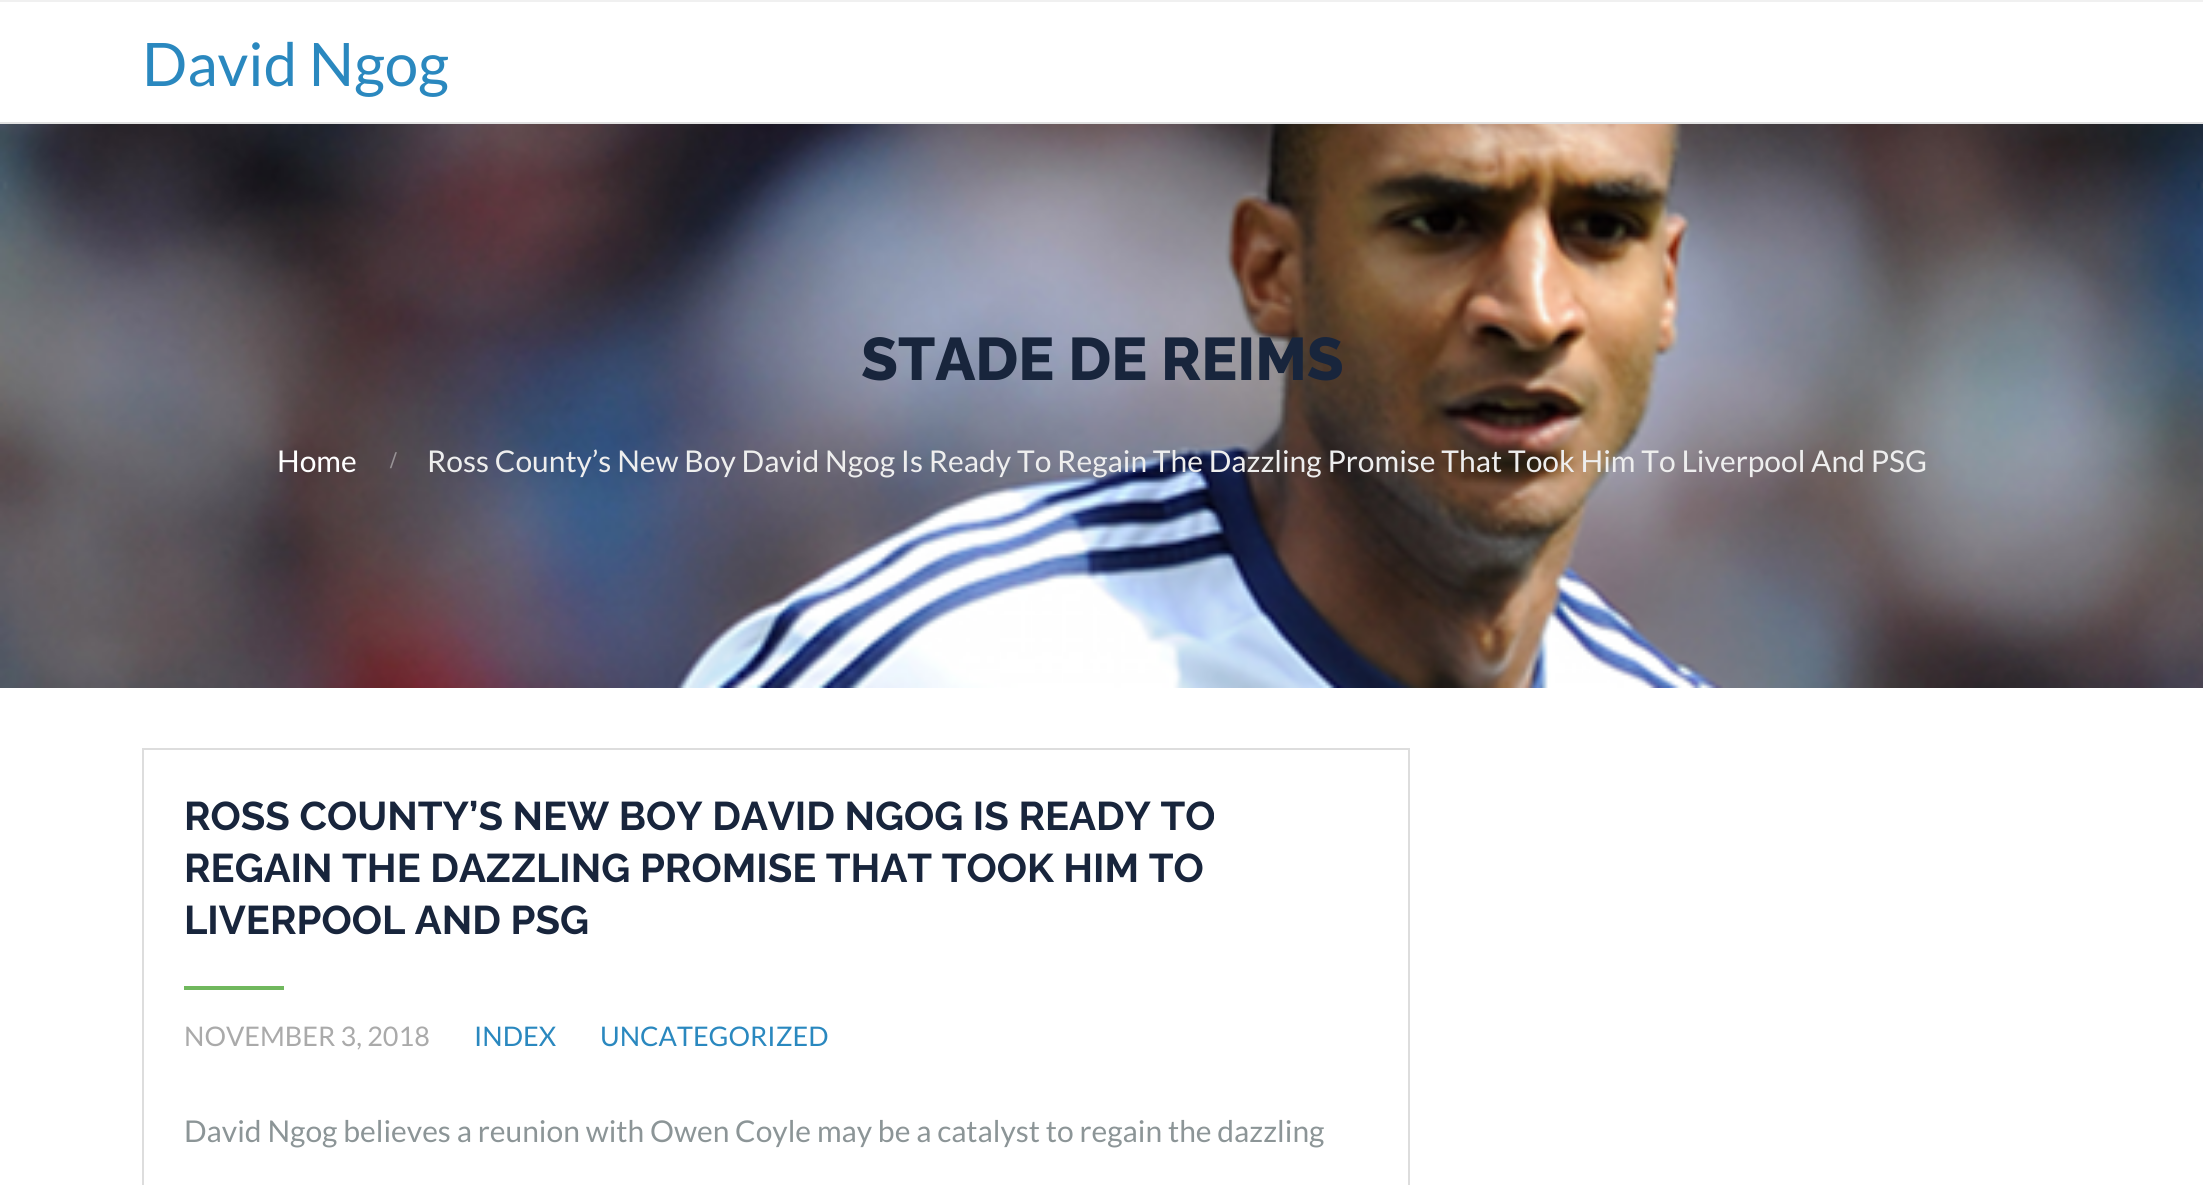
import math
import cairo

surface = cairo.ImageSurface(cairo.FORMAT_RGB24, 2203, 1185)
ctx = cairo.Context(surface)
options = cairo.FontOptions()
options.set_hint_metrics(cairo.HINT_METRICS_OFF)
options.set_hint_style(cairo.HINT_STYLE_NONE)
ctx.set_font_options(options)
ctx.set_miter_limit(4)


def set_color(code):
    ctx.set_source_rgb(*(v / 255 for v in bytes.fromhex(code[-6:])))


def draw_text(x, y, s, family, size, color, bold=False, italic=False):
    ctx.select_font_face(family, cairo.FONT_SLANT_ITALIC if italic else cairo.FONT_SLANT_NORMAL, cairo.FONT_WEIGHT_BOLD if bold else cairo.FONT_WEIGHT_NORMAL)
    ctx.set_font_size(size)
    set_color(color)
    ctx.move_to(x, y)
    ctx.show_text(s)


def fill_rect(x, y, w, h, color):
    set_color(color)
    ctx.rectangle(x, y, w, h)
    ctx.fill()


def draw_image(path, x, y, w, h):
    ctx.save()
    ctx.set_source_surface(cairo.ImageSurface.create_from_png(path), x, y)
    ctx.rectangle(x, y, w, h)
    ctx.fill()
    ctx.restore()


set_color("#f0f0f0")
ctx.paint()
fill_rect(0, 2, 2203, 120, "#ffffff")
fill_rect(0, 122, 2203, 2, "#e1e1e1")
draw_text(142, 86, "David Ngog", "Lato", 60, "#2a88bf")
draw_image("assets/img1.png", 0, 124, 2203, 564)
draw_text(861, 380, "STADE DE REIMS", "Raleway ExtraBold", 60, "#18253c")
draw_text(277, 472, "Home", "Lato", 30, "#ffffff")
draw_text(390, 468, "/", "Liberation Serif", 24, "#989396", bold=True)
draw_text(427, 472, "Ross County’s New Boy David Ngog Is Ready To Regain The Dazzling Promise That Took Him To Liverpool And PSG", "Lato", 30, "#eeeeee")
fill_rect(0, 688, 2203, 497, "#ffffff")
ctx.rectangle(143, 749, 1266, 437)
set_color("#dddddd")
ctx.stroke()
draw_text(184, 830, "ROSS COUNTY’S NEW BOY DAVID NGOG IS READY TO", "Raleway", 40, "#18253c", bold=True)
draw_text(184, 882, "REGAIN THE DAZZLING PROMISE THAT TOOK HIM TO", "Raleway", 40, "#18253c", bold=True)
draw_text(184, 934, "LIVERPOOL AND PSG", "Raleway", 40, "#18253c", bold=True)
fill_rect(184, 986, 100, 4, "#70b85d")
draw_text(184, 1046, "NOVEMBER 3, 2018", "Lato", 27, "#aaaaaa")
draw_text(474, 1046, "INDEX", "Lato", 27, "#2a88bf")
draw_text(600, 1046, "UNCATEGORIZED", "Lato", 27, "#2a88bf")
draw_text(184, 1142, "David Ngog believes a reunion with Owen Coyle may be a catalyst to regain the dazzling", "Lato", 30, "#8c9597")
surface.write_to_png("output.png")
